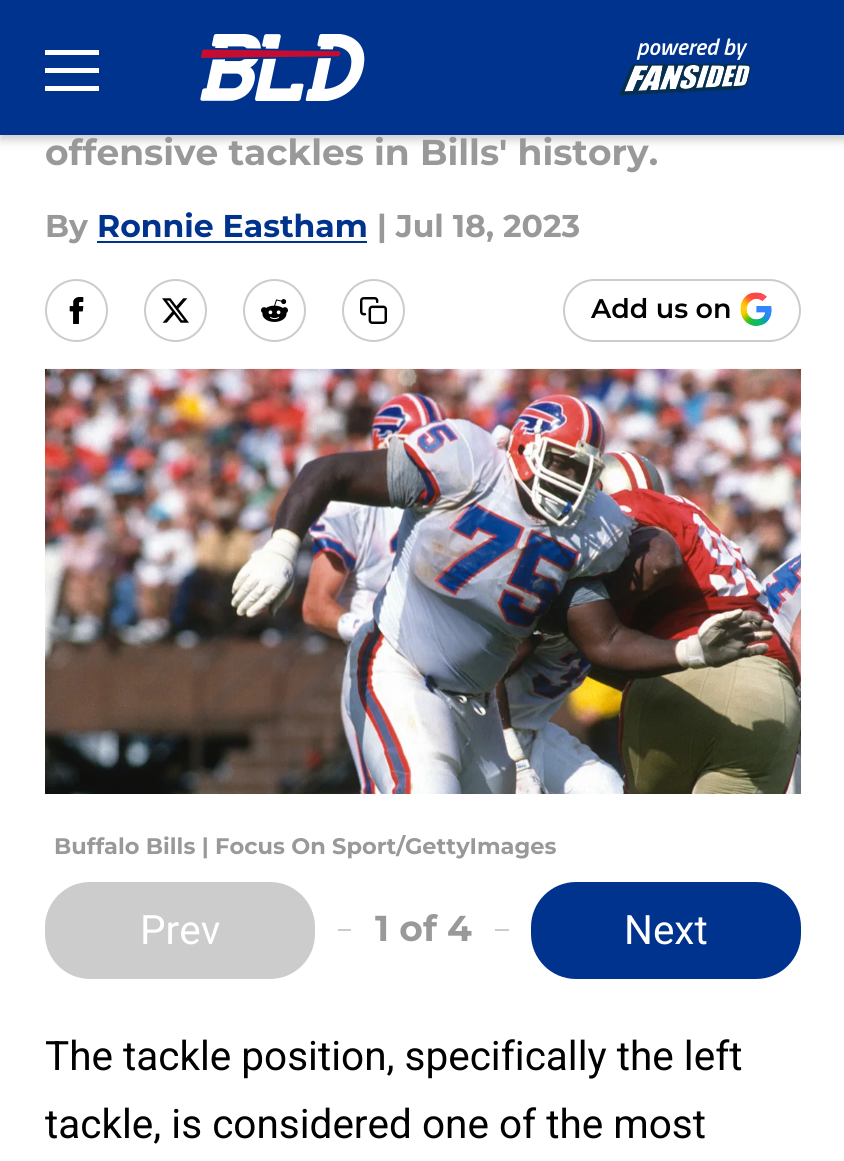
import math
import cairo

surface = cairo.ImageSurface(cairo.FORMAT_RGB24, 844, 1161)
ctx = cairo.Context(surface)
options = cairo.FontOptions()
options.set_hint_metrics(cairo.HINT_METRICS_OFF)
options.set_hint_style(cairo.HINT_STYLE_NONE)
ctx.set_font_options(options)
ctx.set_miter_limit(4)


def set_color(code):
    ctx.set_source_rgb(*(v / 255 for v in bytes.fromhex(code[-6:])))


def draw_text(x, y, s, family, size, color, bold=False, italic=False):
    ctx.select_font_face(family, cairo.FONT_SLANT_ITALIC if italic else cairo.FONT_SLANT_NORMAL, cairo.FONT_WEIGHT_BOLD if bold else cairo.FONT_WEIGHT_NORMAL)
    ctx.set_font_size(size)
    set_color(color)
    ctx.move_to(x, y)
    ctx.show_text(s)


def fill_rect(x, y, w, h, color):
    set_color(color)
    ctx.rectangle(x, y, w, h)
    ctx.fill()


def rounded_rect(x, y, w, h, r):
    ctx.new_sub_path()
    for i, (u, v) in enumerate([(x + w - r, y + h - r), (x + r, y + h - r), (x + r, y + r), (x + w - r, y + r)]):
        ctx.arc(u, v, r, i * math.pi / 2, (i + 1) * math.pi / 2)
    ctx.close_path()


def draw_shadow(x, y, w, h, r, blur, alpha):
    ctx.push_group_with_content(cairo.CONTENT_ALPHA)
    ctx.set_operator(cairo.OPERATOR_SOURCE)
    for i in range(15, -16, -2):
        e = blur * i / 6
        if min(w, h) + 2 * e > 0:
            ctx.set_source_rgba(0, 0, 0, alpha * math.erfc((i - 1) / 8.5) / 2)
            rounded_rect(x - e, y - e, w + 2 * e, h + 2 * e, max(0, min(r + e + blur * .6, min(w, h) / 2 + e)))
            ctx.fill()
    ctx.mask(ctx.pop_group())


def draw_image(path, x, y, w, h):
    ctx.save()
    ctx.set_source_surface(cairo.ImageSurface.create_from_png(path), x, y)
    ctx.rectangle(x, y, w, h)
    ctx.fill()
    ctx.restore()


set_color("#ffffff")
ctx.paint()
set_color("#000000")
draw_shadow(0, 5, 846, 135, 0, 4.5, 0.2)
fill_rect(0, 0, 844, 135, "#00338d")
fill_rect(45, 50, 54, 5, "#ffffff")
fill_rect(45, 68, 54, 5, "#ffffff")
fill_rect(45, 86, 54, 5, "#ffffff")
draw_image("assets/img1.png", 200, 34, 165, 67)
draw_image("assets/img2.png", 619, 38, 132, 58)
draw_text(45, 165, "offensive tackles in Bills' history.", "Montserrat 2 Thin", 36, "#999999")
draw_text(45, 237, "By", "Montserrat 2 Thin", 31.5, "#999999")
draw_text(97, 237, "Ronnie Eastham", "Montserrat 2 Thin", 31.5, "#00338d")
fill_rect(97, 241, 270, 2, "#00338d")
draw_text(377, 237, "| Jul 18, 2023", "Montserrat 2 Thin", 31.5, "#999999")
ctx.new_path()
ctx.arc(76.5, 310.5, 30.5, 0, 2 * math.pi)
set_color("#cccccc")
ctx.stroke()
draw_image("assets/img3.png", 69, 297, 15, 27)
ctx.arc(175.5, 310.5, 30.5, 0, 2 * math.pi)
ctx.stroke()
draw_image("assets/img4.png", 162, 298, 27, 25)
ctx.arc(274.5, 310.5, 30.5, 0, 2 * math.pi)
ctx.stroke()
draw_image("assets/img5.png", 261, 299, 27, 23)
ctx.arc(373.5, 310.5, 30.5, 0, 2 * math.pi)
ctx.stroke()
draw_image("assets/img6.png", 360, 297, 27, 27)
rounded_rect(564, 280, 236, 61, 30.5)
ctx.stroke()
draw_text(591, 318, "Add us on", "Montserrat Thin", 27, "#000000")
draw_image("assets/img7.png", 740, 292, 32, 34)
draw_image("assets/img8.png", 45, 368, 756, 426)
draw_text(54, 854, "Buffalo Bills | Focus On Sport/GettyImages", "Montserrat 2 Thin", 22.5, "#999999")
set_color("#cccccc")
rounded_rect(45, 882, 270, 97, 45)
ctx.fill()
draw_text(140, 944, "Prev", "Roboto", 40.5, "#ffffff")
fill_rect(338, 929, 13, 2, "#cccccc")
draw_text(375, 941, "1 of 4", "Montserrat 2 Thin", 36, "#999999")
fill_rect(495, 929, 14, 2, "#cccccc")
set_color("#00338d")
rounded_rect(531, 882, 270, 97, 45)
ctx.fill()
draw_text(624, 944, "Next", "Roboto", 40.5, "#ffffff")
draw_text(45, 1070, "The tackle position, specifically the left", "Roboto", 40.5, "#000000")
draw_text(45, 1138, "tackle, is considered one of the most", "Roboto", 40.5, "#000000")
surface.write_to_png("output.png")
